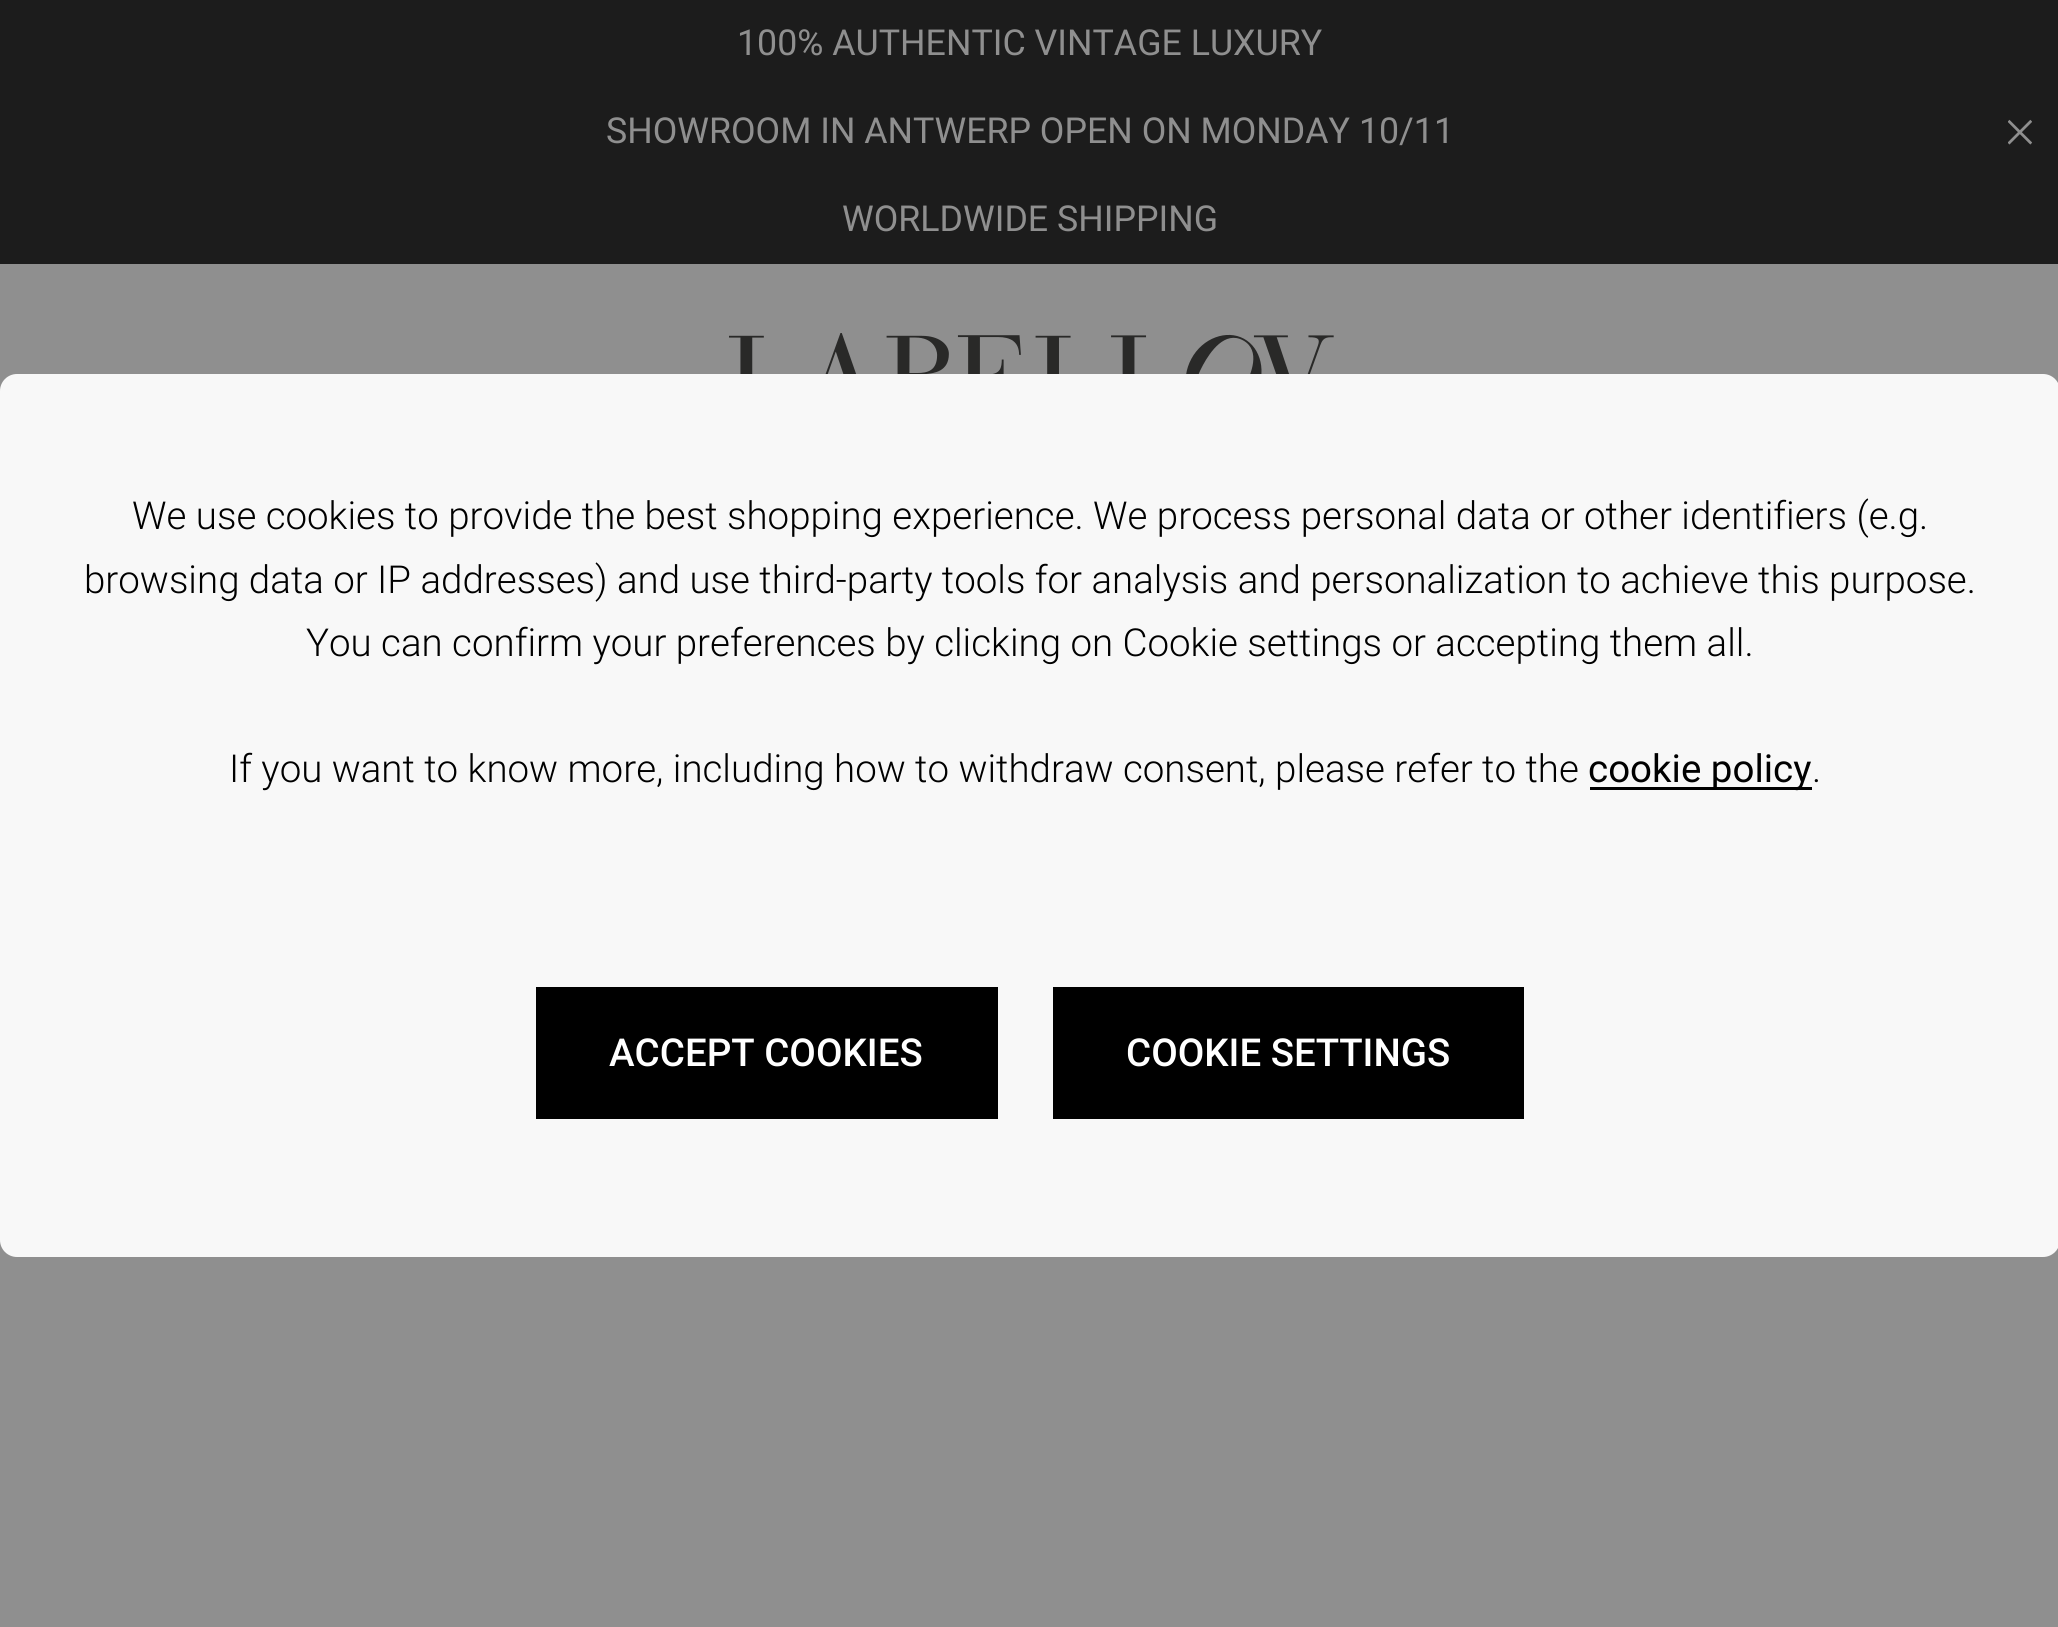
import math
import cairo

surface = cairo.ImageSurface(cairo.FORMAT_RGB24, 2058, 1627)
ctx = cairo.Context(surface)
options = cairo.FontOptions()
options.set_hint_metrics(cairo.HINT_METRICS_OFF)
options.set_hint_style(cairo.HINT_STYLE_NONE)
ctx.set_font_options(options)
ctx.set_miter_limit(4)


def set_color(code):
    ctx.set_source_rgb(*(v / 255 for v in bytes.fromhex(code[-6:])))


def draw_text(x, y, s, family, size, color, bold=False, italic=False):
    ctx.select_font_face(family, cairo.FONT_SLANT_ITALIC if italic else cairo.FONT_SLANT_NORMAL, cairo.FONT_WEIGHT_BOLD if bold else cairo.FONT_WEIGHT_NORMAL)
    ctx.set_font_size(size)
    set_color(color)
    ctx.move_to(x, y)
    ctx.show_text(s)


def fill_rect(x, y, w, h, color):
    set_color(color)
    ctx.rectangle(x, y, w, h)
    ctx.fill()


def rounded_rect(x, y, w, h, r):
    ctx.new_sub_path()
    for i, (u, v) in enumerate([(x + w - r, y + h - r), (x + r, y + h - r), (x + r, y + r), (x + w - r, y + r)]):
        ctx.arc(u, v, r, i * math.pi / 2, (i + 1) * math.pi / 2)
    ctx.close_path()


def draw_image(path, x, y, w, h):
    ctx.save()
    ctx.set_source_surface(cairo.ImageSurface.create_from_png(path), x, y)
    ctx.rectangle(x, y, w, h)
    ctx.fill()
    ctx.restore()


set_color("#8f8f8f")
ctx.paint()
fill_rect(0, 0, 2058, 264, "#1c1c1c")
draw_text(737, 55, "100% AUTHENTIC VINTAGE LUXURY", "Roboto", 35.75, "#8f8f8f")
draw_text(606, 143, "SHOWROOM IN ANTWERP OPEN ON MONDAY 10/11", "Roboto", 35.75, "#8f8f8f")
draw_text(842, 231, "WORLDWIDE SHIPPING", "Roboto", 35.75, "#8f8f8f")
draw_image("assets/img1.png", 2008, 119, 24, 26)
draw_image("assets/img2.png", 729, 333, 605, 41)
set_color("#f8f8f8")
rounded_rect(0, 374, 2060, 883, 17)
ctx.fill()
draw_text(132, 529, "We use cookies to provide the best shopping experience. We process personal data or other identifiers (e.g.", "Roboto Light", 38.5, "#000000")
draw_text(84, 593, "browsing data or IP addresses) and use third-party tools for analysis and personalization to achieve this purpose.", "Roboto Light", 38.5, "#000000")
draw_text(306, 656, "You can confirm your preferences by clicking on Cookie settings or accepting them all.", "Roboto Light", 38.5, "#000000")
draw_text(229, 782, "If you want to know more, including how to withdraw consent, please refer to the", "Roboto Light", 38.5, "#000000")
fill_rect(1590, 787, 222, 3, "#000000")
draw_text(1588, 782, "cookie policy", "Roboto", 38.5, "#000000")
draw_text(1812, 782, ".", "Roboto Light", 38.5, "#000000")
fill_rect(536, 987, 462, 132, "#000000")
draw_text(609, 1066, "ACCEPT COOKIES", "Roboto Medium", 38.5, "#ffffff")
fill_rect(1053, 987, 471, 132, "#000000")
draw_text(1126, 1066, "COOKIE SETTINGS", "Roboto Medium", 38.5, "#ffffff")
surface.write_to_png("output.png")
